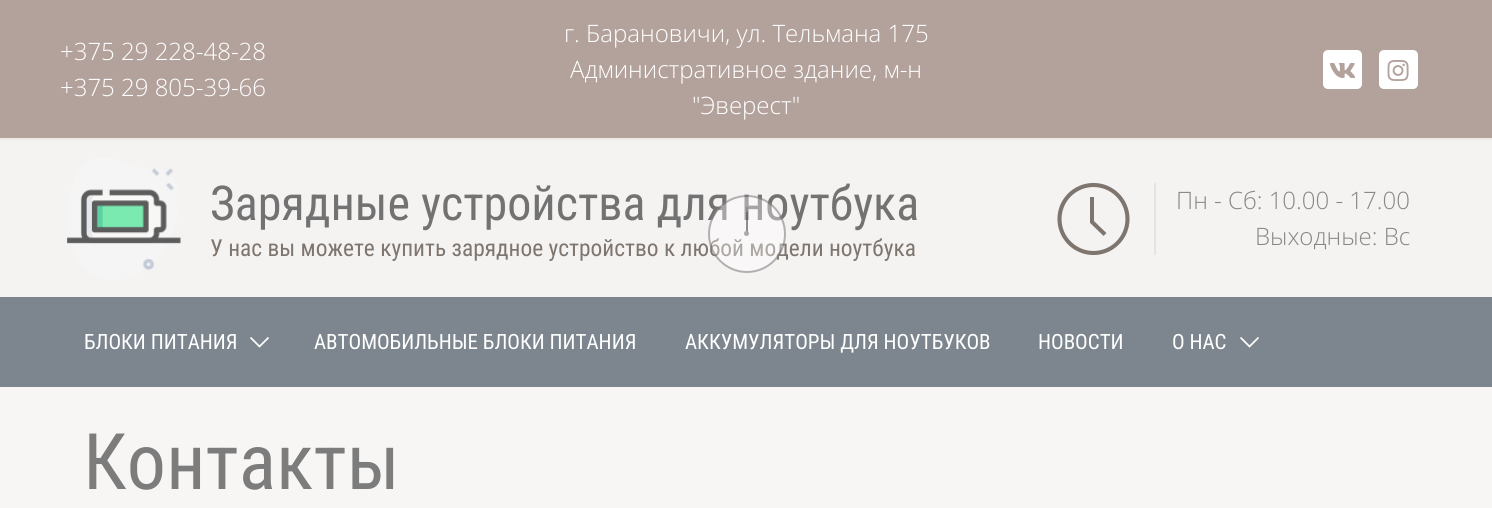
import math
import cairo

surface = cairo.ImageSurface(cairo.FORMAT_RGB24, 1492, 508)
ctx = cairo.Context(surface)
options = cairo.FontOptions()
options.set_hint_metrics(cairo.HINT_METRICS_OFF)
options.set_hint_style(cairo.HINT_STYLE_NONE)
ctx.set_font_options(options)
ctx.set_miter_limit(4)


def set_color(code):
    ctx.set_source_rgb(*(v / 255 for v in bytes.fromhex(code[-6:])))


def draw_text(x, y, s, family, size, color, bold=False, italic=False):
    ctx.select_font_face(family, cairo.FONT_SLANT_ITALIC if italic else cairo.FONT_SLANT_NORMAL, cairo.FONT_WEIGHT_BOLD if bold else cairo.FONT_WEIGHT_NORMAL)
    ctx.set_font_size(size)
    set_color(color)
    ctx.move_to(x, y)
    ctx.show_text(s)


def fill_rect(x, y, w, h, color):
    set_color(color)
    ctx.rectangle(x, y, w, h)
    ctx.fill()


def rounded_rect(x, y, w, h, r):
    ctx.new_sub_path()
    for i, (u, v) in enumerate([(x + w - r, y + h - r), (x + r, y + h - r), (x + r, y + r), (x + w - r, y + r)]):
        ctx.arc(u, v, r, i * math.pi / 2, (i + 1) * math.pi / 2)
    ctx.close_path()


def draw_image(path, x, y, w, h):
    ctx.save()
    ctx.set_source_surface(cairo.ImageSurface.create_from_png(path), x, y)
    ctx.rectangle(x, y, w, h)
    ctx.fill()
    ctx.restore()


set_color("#b3a29c")
ctx.paint()
fill_rect(0, 138, 1492, 2, "#eeeae8")
draw_text(60, 60, "+375 29 228-48-28", "Open Sans Light", 24, "#ffffff")
draw_text(60, 96, "+375 29 805-39-66", "Open Sans Light", 24, "#ffffff")
draw_text(564, 42, "г. Барановичи, ул. Тельмана 175", "Open Sans Light", 24, "#ffffff")
draw_text(570, 78, "Административное здание, м-н", "Open Sans Light", 24, "#ffffff")
draw_text(692, 114, "\"Эверест\"", "Open Sans Light", 24, "#ffffff")
rounded_rect(1323, 50, 39, 39, 5)
ctx.fill()
draw_image("assets/img1.png", 1329, 63, 27, 15)
rounded_rect(1379, 50, 39, 39, 5)
ctx.fill()
draw_image("assets/img2.png", 1387, 60, 22, 21)
fill_rect(0, 140, 1492, 157, "#f5f3f2")
draw_image("assets/img3.png", 67, 157, 114, 123)
draw_text(210, 220, "Зарядные устройства для ноутбука", "Roboto Condensed", 48, "#727272")
draw_text(210, 256, "У нас вы можете купить зарядное устройство к любой модели ноутбука", "Roboto Condensed", 23.4, "#7e756f")
ctx.new_path()
ctx.arc(1093.5, 219, 34, 0, 2 * math.pi)
ctx.set_line_width(4.1)
ctx.stroke()
fill_rect(1090, 197, 4, 26, "#7e756f")
ctx.new_path()
ctx.move_to(1105, 234.5)
ctx.line_to(1091.5, 221.5)
ctx.stroke()
fill_rect(1154, 183, 2, 72, "#e6e3e3")
draw_text(1176, 209, "Пн - Сб: 10.00 - 17.00", "Open Sans Light", 24, "#878787")
draw_text(1255, 245, "Выходные: Вс", "Open Sans Light", 24, "#878787")
fill_rect(0, 297, 1492, 90, "#7d868e")
draw_text(84, 349, "БЛОКИ ПИТАНИЯ", "Roboto Condensed", 21, "#ffffff")
ctx.new_path()
ctx.move_to(250.5, 337.5)
ctx.line_to(259.5, 346.5)
ctx.line_to(268.5, 337.5)
ctx.set_line_width(1.7)
ctx.stroke()
draw_text(314, 349, "АВТОМОБИЛЬНЫЕ БЛОКИ ПИТАНИЯ", "Roboto Condensed", 21, "#ffffff")
draw_text(685, 349, "АККУМУЛЯТОРЫ ДЛЯ НОУТБУКОВ", "Roboto Condensed", 21, "#ffffff")
draw_text(1038, 349, "НОВОСТИ", "Roboto Condensed", 21, "#ffffff")
draw_text(1172, 349, "О НАС", "Roboto Condensed", 21, "#ffffff")
ctx.new_path()
ctx.move_to(1240.5, 337.5)
ctx.line_to(1249.5, 346.5)
ctx.line_to(1258.5, 337.5)
ctx.stroke()
fill_rect(0, 387, 1492, 121, "#f7f6f5")
draw_text(83, 489, "Контакты", "Roboto Condensed", 78, "#7c7c7c")
ctx.set_source_rgba(1, 1, 1, 0.36)
ctx.new_path()
ctx.arc(747, 234, 39, 0, 2 * math.pi)
ctx.fill()
ctx.arc(747, 234, 38, 0, 2 * math.pi)
ctx.set_source_rgba(0.2, 0.2, 0.2, 0.36)
ctx.set_line_width(2)
ctx.stroke()
ctx.set_source_rgba(0.4, 0.4, 0.4, 0.36)
ctx.rectangle(746, 207, 2, 27)
ctx.fill()
ctx.set_source_rgba(0.2, 0.2, 0.2, 0.36)
ctx.rectangle(746, 212, 2, 22)
ctx.fill()
set_color("#aca9a8")
ctx.arc(746.5, 233.5, 2.5, 0, 2 * math.pi)
ctx.fill()
surface.write_to_png("output.png")
